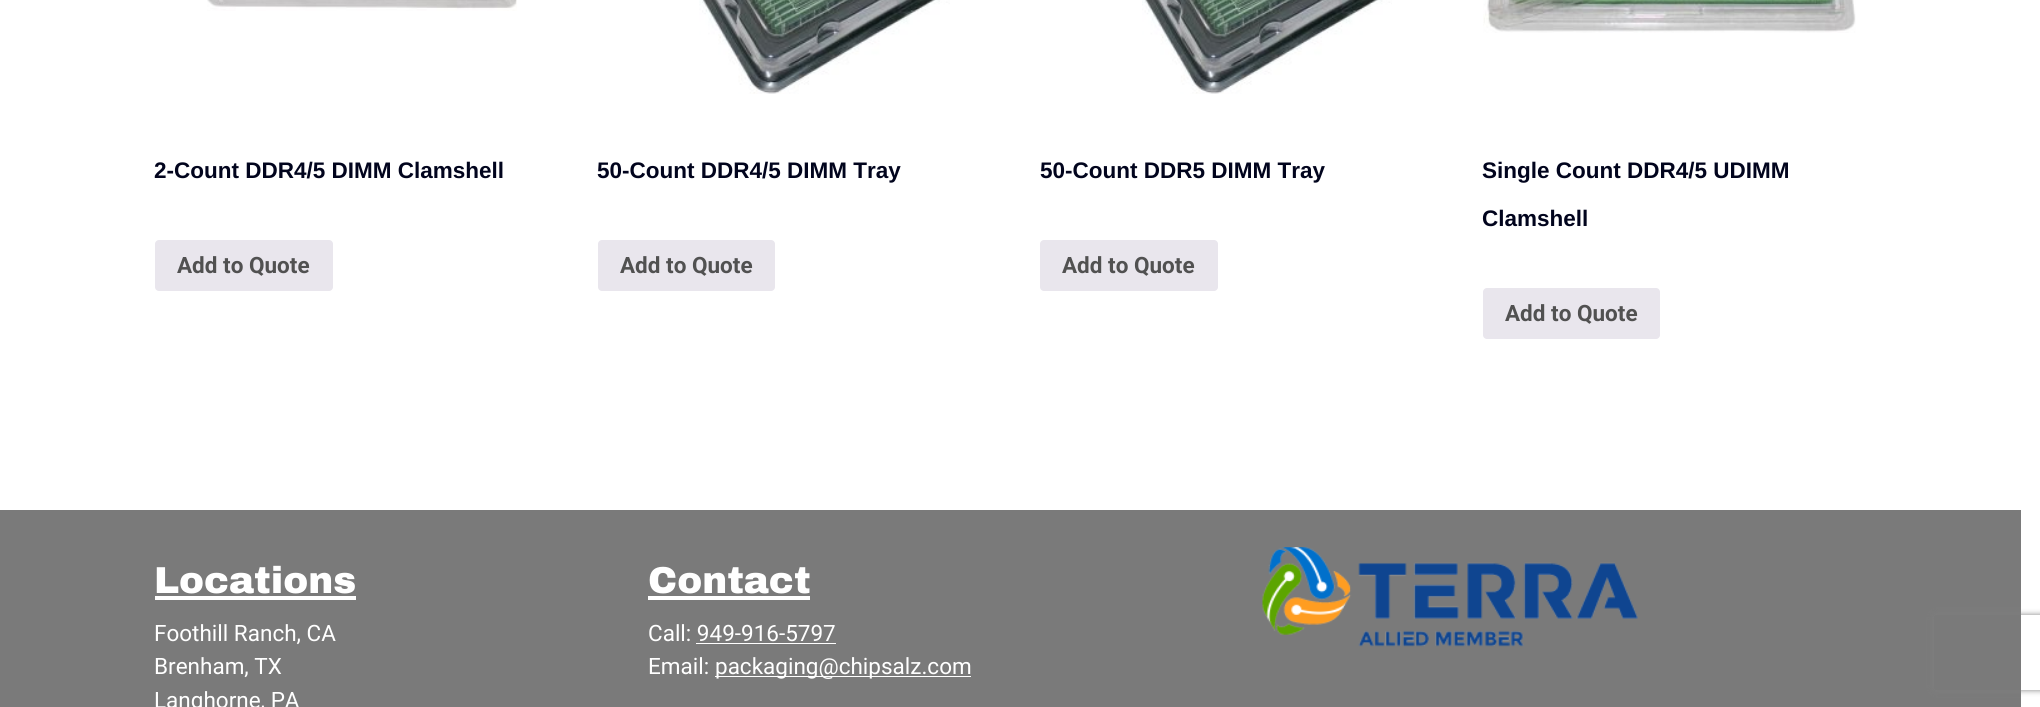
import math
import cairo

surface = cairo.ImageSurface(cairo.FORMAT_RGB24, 2040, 707)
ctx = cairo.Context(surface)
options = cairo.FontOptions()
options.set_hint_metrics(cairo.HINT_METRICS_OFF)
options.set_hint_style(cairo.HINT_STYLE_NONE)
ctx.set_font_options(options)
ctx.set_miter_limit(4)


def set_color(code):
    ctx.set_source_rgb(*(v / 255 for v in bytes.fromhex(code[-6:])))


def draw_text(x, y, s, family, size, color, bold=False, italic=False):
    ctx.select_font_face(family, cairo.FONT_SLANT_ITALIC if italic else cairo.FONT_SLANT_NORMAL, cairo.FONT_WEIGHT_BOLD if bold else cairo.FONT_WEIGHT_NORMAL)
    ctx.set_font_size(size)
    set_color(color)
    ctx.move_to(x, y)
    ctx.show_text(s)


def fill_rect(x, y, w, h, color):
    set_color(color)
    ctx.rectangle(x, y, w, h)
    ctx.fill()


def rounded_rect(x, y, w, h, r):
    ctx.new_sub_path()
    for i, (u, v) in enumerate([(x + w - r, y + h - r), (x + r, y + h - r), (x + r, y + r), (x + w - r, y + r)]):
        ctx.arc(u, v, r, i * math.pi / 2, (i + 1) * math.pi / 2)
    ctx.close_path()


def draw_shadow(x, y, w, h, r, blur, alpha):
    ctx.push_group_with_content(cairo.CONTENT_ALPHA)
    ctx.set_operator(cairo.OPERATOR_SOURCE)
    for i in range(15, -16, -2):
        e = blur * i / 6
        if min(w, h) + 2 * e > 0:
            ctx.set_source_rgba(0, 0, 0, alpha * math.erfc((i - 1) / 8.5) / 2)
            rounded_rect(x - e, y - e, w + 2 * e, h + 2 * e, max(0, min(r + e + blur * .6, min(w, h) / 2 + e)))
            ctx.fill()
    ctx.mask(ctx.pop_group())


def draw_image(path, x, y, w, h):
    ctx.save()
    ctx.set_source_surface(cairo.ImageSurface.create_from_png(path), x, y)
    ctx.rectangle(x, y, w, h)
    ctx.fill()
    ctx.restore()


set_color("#ffffff")
ctx.paint()
draw_image("assets/img1.png", 207, 0, 310, 11)
draw_text(154, 178, "2-Count DDR4/5 DIMM Clamshell", "Liberation Sans", 22.5, "#01041d", bold=True)
set_color("#e9e6ed")
rounded_rect(155, 240, 178, 51, 4)
ctx.fill()
draw_text(177, 273, "Add to Quote", "Roboto", 22.5, "#515151", bold=True)
draw_image("assets/img2.png", 699, 0, 251, 94)
draw_text(597, 178, "50-Count DDR4/5 DIMM Tray", "Liberation Sans", 22.5, "#01041d", bold=True)
set_color("#e9e6ed")
rounded_rect(598, 240, 177, 51, 4)
ctx.fill()
draw_text(620, 273, "Add to Quote", "Roboto", 22.5, "#515151", bold=True)
draw_image("assets/img3.png", 1142, 0, 250, 94)
draw_text(1040, 178, "50-Count DDR5 DIMM Tray", "Liberation Sans", 22.5, "#01041d", bold=True)
set_color("#e9e6ed")
rounded_rect(1040, 240, 178, 51, 4)
ctx.fill()
draw_text(1062, 273, "Add to Quote", "Roboto", 22.5, "#515151", bold=True)
draw_image("assets/img4.png", 1483, 0, 373, 33)
draw_text(1482, 178, "Single Count DDR4/5 UDIMM", "Liberation Sans", 22.5, "#01041d", bold=True)
draw_text(1482, 226, "Clamshell", "Liberation Sans", 22.5, "#01041d", bold=True)
set_color("#e9e6ed")
rounded_rect(1483, 288, 177, 51, 4)
ctx.fill()
draw_text(1505, 321, "Add to Quote", "Roboto", 22.5, "#515151", bold=True)
fill_rect(0, 510, 2021, 197, "#7a7a7a")
draw_text(154, 593, "Locations", "Archivo Black Black", 37.5, "#ffffff")
fill_rect(155, 596, 201, 4, "#ffffff")
draw_text(154, 641, "Foothill Ranch, CA", "Roboto", 22.5, "#ffffff")
draw_text(154, 674, "Brenham, TX", "Roboto", 22.5, "#ffffff")
draw_text(154, 708, "Langhorne, PA", "Roboto", 22.5, "#ffffff")
draw_text(648, 593, "Contact", "Archivo Black Black", 37.5, "#ffffff")
fill_rect(648, 596, 162, 4, "#ffffff")
draw_text(648, 641, "Call: 949-916-5797", "Roboto", 22.5, "#ffffff")
fill_rect(696, 643, 140, 1, "#ffffff")
draw_text(648, 674, "Email:", "Roboto", 22.5, "#ffffff")
fill_rect(715, 676, 256, 1, "#ffffff")
draw_text(715, 674, "packaging@chipsalz.com", "Roboto", 22.5, "#ffffff")
draw_image("assets/img5.png", 1262, 547, 376, 100)
ctx.save()
ctx.set_fill_rule(cairo.FILL_RULE_EVEN_ODD)
ctx.new_path()
ctx.move_to(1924, 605)
ctx.line_to(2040, 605)
ctx.line_to(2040, 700)
ctx.line_to(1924, 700)
ctx.close_path()
ctx.move_to(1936.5, 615)
ctx.line_to(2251.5, 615)
ctx.curve_to(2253, 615, 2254, 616, 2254, 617.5)
ctx.line_to(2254, 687.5)
ctx.curve_to(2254, 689, 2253, 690, 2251.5, 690)
ctx.line_to(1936.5, 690)
ctx.curve_to(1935, 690, 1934, 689, 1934, 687.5)
ctx.line_to(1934, 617.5)
ctx.curve_to(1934, 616, 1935, 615, 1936.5, 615)
ctx.close_path()
ctx.clip()
set_color("#808080")
draw_shadow(1934, 615, 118, 75, 2.5, 3, 1)
ctx.restore()
surface.write_to_png("output.png")
